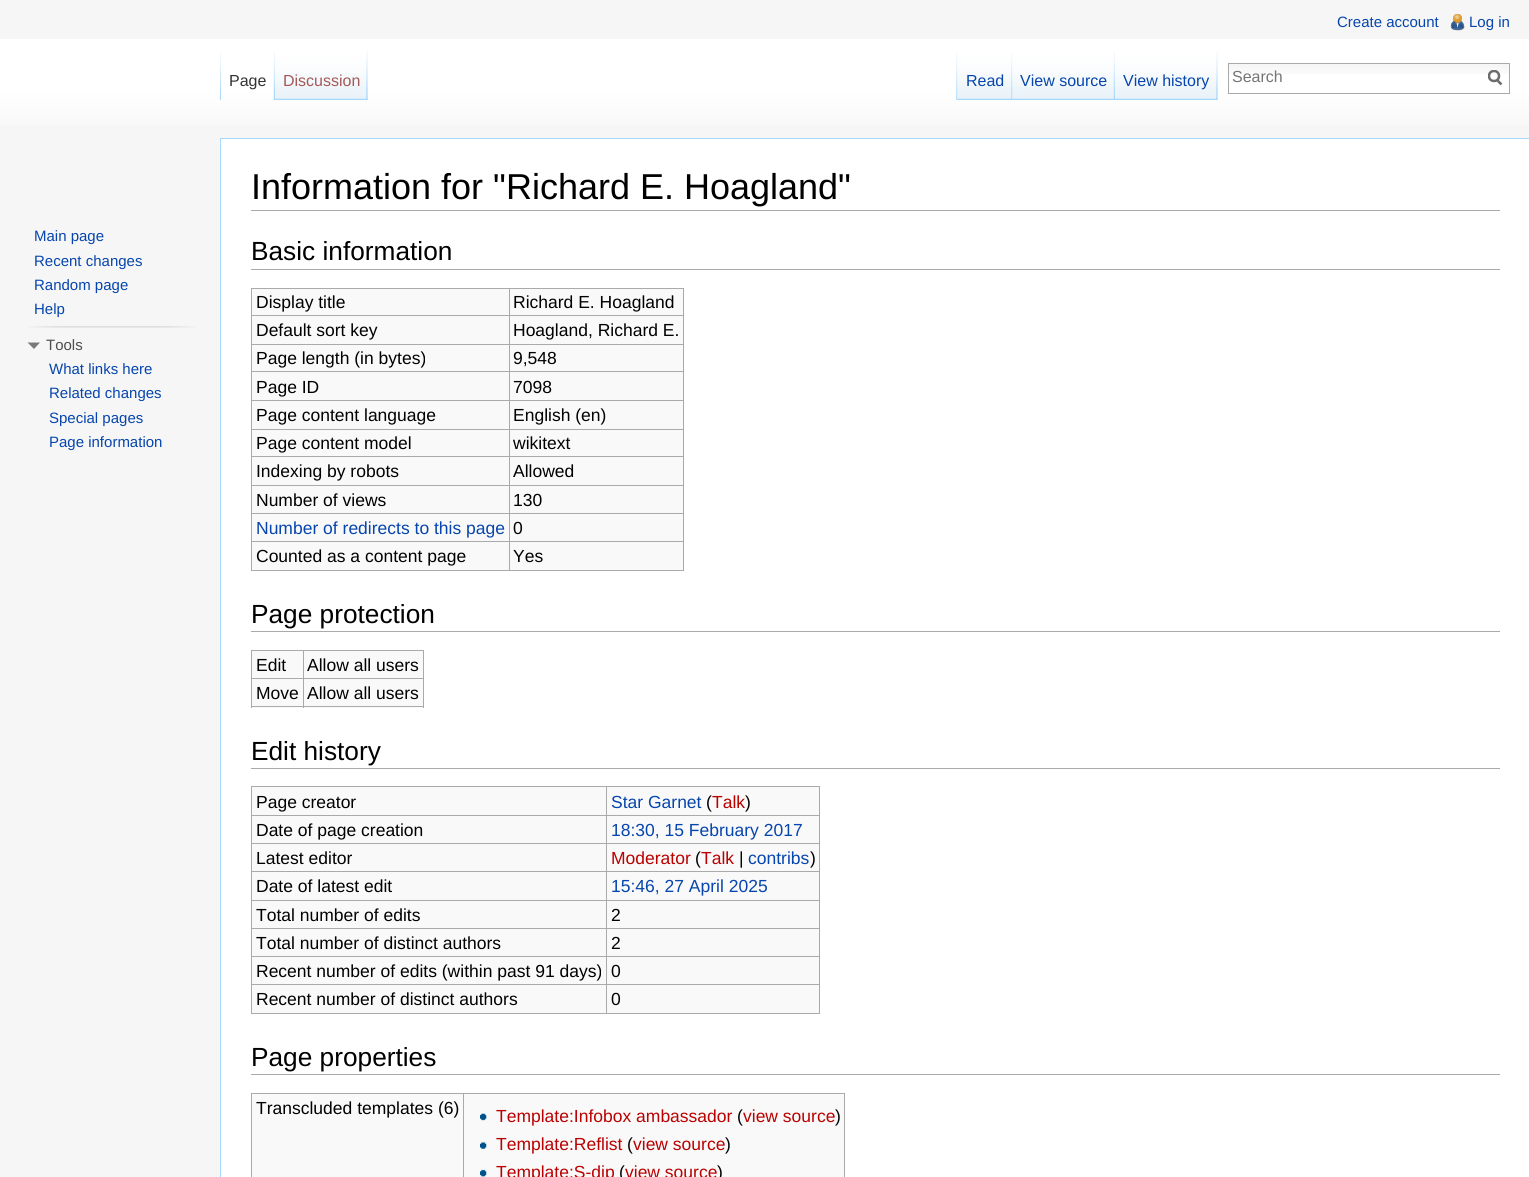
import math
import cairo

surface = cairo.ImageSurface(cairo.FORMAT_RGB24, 1529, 1177)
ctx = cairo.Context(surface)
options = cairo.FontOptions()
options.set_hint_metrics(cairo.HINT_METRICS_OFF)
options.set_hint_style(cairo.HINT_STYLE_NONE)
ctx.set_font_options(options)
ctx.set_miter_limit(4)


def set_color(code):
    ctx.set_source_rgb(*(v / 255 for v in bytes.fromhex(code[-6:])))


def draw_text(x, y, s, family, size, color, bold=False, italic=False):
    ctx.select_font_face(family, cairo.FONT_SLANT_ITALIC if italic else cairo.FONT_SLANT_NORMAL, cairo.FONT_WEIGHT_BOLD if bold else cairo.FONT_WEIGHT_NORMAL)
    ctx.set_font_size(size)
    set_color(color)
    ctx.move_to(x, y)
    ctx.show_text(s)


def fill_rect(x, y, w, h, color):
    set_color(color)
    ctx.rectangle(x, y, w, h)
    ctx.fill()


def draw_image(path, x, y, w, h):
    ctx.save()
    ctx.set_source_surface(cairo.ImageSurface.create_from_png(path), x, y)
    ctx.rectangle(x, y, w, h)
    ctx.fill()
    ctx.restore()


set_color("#f6f6f6")
ctx.paint()
draw_text(1337, 27, "Create account", "Liberation Sans", 15, "#0645ad")
draw_image("assets/img1.png", 1450, 14, 15, 17)
draw_text(1469, 27, "Log in", "Liberation Sans", 15, "#0645ad")
gradient = cairo.LinearGradient(765, 39, 765, 139)
gradient.add_color_stop_rgba(0.5, 1, 1, 1, 1)
gradient.add_color_stop_rgba(1, 0.965, 0.965, 0.965, 1)
ctx.set_source(gradient)
ctx.rectangle(0, 39, 1529, 86)
ctx.fill()
draw_image("assets/img2.png", 220, 50, 1, 50)
draw_image("assets/img3.png", 273, 50, 2, 50)
draw_text(229, 86, "Page", "Liberation Sans", 16, "#333333")
fill_rect(367, 50, 1, 50, "#f3f3f3")
draw_image("assets/img4.png", 275, 50, 93, 50)
draw_image("assets/img5.png", 366, 52, 2, 48)
draw_text(283, 86, "Discussion", "Liberation Sans", 16, "#a55858")
draw_image("assets/img6.png", 956, 52, 2, 48)
draw_image("assets/img7.png", 957, 50, 56, 50)
draw_image("assets/img5.png", 1011, 52, 2, 48)
draw_text(966, 86, "Read", "Liberation Sans", 16, "#0645ad")
draw_image("assets/img8.png", 1012, 50, 103, 50)
draw_image("assets/img9.png", 1113, 50, 2, 49)
draw_text(1020, 86, "View source", "Liberation Sans", 16, "#0645ad")
fill_rect(1217, 50, 1, 50, "#f3f3f3")
draw_image("assets/img10.png", 1115, 50, 103, 50)
draw_image("assets/img5.png", 1216, 52, 2, 48)
draw_text(1123, 86, "View history", "Liberation Sans", 16, "#0645ad")
draw_image("assets/img11.png", 1227, 64, 282, 10)
ctx.rectangle(1228.5, 63.5, 281, 30)
set_color("#aaaaaa")
ctx.set_line_width(1)
ctx.stroke()
draw_text(1232, 82, "Search", "Liberation Sans", 16, "#757575")
ctx.new_path()
ctx.move_to(1501.5, 84.5)
ctx.line_to(1496.5, 79.5)
set_color("#6c6c6c")
ctx.set_line_width(2.5)
ctx.stroke()
ctx.save()
ctx.rectangle(1488, 70, 15, 16)
ctx.clip()
ctx.arc(1494, 76, 5, 0, 2 * math.pi)
ctx.stroke()
ctx.restore()
draw_text(34, 241, "Main page", "Liberation Sans", 15, "#0645ad")
draw_text(34, 266, "Recent changes", "Liberation Sans", 15, "#0645ad")
draw_text(34, 290, "Random page", "Liberation Sans", 15, "#0645ad")
draw_text(34, 314, "Help", "Liberation Sans", 15, "#0645ad")
draw_image("assets/img12.png", 27, 326, 170, 2)
set_color("#797979")
ctx.new_path()
ctx.move_to(40, 342.5)
ctx.line_to(34, 349)
ctx.line_to(27.5, 342.5)
ctx.close_path()
ctx.fill()
draw_text(46, 350, "Tools", "Liberation Sans", 15, "#4d4d4d")
draw_text(49, 374, "What links here", "Liberation Sans", 15, "#0645ad")
draw_text(49, 398, "Related changes", "Liberation Sans", 15, "#0645ad")
draw_text(49, 423, "Special pages", "Liberation Sans", 15, "#0645ad")
draw_text(49, 447, "Page information", "Liberation Sans", 15, "#0645ad")
fill_rect(221, 139, 1308, 1038, "#ffffff")
fill_rect(220, 138, 1309, 1, "#a7d7f9")
fill_rect(220, 138, 1, 1039, "#a7d7f9")
fill_rect(251, 210, 1249, 1, "#aaaaaa")
draw_text(251, 199, "Information for \"Richard E. Hoagland\"", "Liberation Sans", 36, "#000000")
fill_rect(251, 269, 1249, 1, "#aaaaaa")
draw_text(251, 260, "Basic information", "Liberation Sans", 26.25, "#000000")
fill_rect(252, 289, 431, 281, "#f9f9f9")
fill_rect(251, 288, 433, 1, "#aaaaaa")
fill_rect(683, 288, 1, 283, "#aaaaaa")
fill_rect(251, 570, 433, 1, "#aaaaaa")
fill_rect(251, 288, 1, 283, "#aaaaaa")
draw_text(256, 308, "Display title", "Liberation Sans", 17.5, "#000000")
fill_rect(509, 315, 175, 1, "#aaaaaa")
fill_rect(509, 344, 175, 1, "#aaaaaa")
fill_rect(509, 371, 175, 1, "#aaaaaa")
fill_rect(509, 400, 175, 1, "#aaaaaa")
fill_rect(509, 429, 175, 1, "#aaaaaa")
fill_rect(509, 456, 175, 1, "#aaaaaa")
fill_rect(509, 485, 175, 1, "#aaaaaa")
fill_rect(509, 513, 175, 1, "#aaaaaa")
fill_rect(509, 541, 175, 1, "#aaaaaa")
fill_rect(509, 541, 1, 30, "#aaaaaa")
fill_rect(251, 541, 259, 1, "#aaaaaa")
fill_rect(509, 513, 1, 30, "#aaaaaa")
fill_rect(251, 513, 259, 1, "#aaaaaa")
fill_rect(509, 485, 1, 29, "#aaaaaa")
fill_rect(251, 485, 259, 1, "#aaaaaa")
fill_rect(509, 456, 1, 30, "#aaaaaa")
fill_rect(251, 456, 259, 1, "#aaaaaa")
fill_rect(509, 429, 1, 29, "#aaaaaa")
fill_rect(251, 429, 259, 1, "#aaaaaa")
fill_rect(509, 400, 1, 30, "#aaaaaa")
fill_rect(251, 400, 259, 1, "#aaaaaa")
fill_rect(509, 371, 1, 30, "#aaaaaa")
fill_rect(251, 371, 259, 1, "#aaaaaa")
fill_rect(509, 344, 1, 29, "#aaaaaa")
fill_rect(251, 344, 259, 1, "#aaaaaa")
fill_rect(509, 315, 1, 30, "#aaaaaa")
fill_rect(251, 315, 259, 1, "#aaaaaa")
fill_rect(509, 288, 1, 28, "#aaaaaa")
draw_text(513, 308, "Richard E. Hoagland", "Liberation Sans", 17.5, "#000000")
draw_text(256, 336, "Default sort key", "Liberation Sans", 17.5, "#000000")
draw_text(513, 336, "Hoagland, Richard E.", "Liberation Sans", 17.5, "#000000")
draw_text(256, 364, "Page length (in bytes)", "Liberation Sans", 17.5, "#000000")
draw_text(513, 364, "9,548", "Liberation Sans", 17.5, "#000000")
draw_text(256, 393, "Page ID", "Liberation Sans", 17.5, "#000000")
draw_text(513, 393, "7098", "Liberation Sans", 17.5, "#000000")
draw_text(256, 421, "Page content language", "Liberation Sans", 17.5, "#000000")
draw_text(513, 421, "English (en)", "Liberation Sans", 17.5, "#000000")
draw_text(256, 449, "Page content model", "Liberation Sans", 17.5, "#000000")
draw_text(513, 449, "wikitext", "Liberation Sans", 17.5, "#000000")
draw_text(256, 477, "Indexing by robots", "Liberation Sans", 17.5, "#000000")
draw_text(513, 477, "Allowed", "Liberation Sans", 17.5, "#000000")
draw_text(256, 506, "Number of views", "Liberation Sans", 17.5, "#000000")
draw_text(513, 506, "130", "Liberation Sans", 17.5, "#000000")
draw_text(256, 534, "Number of redirects to this page", "Liberation Sans", 17.5, "#0645ad")
draw_text(513, 534, "0", "Liberation Sans", 17.5, "#000000")
draw_text(256, 562, "Counted as a content page", "Liberation Sans", 17.5, "#000000")
draw_text(513, 562, "Yes", "Liberation Sans", 17.5, "#000000")
fill_rect(251, 631, 1249, 1, "#aaaaaa")
draw_text(251, 623, "Page protection", "Liberation Sans", 26.25, "#000000")
fill_rect(252, 651, 171, 57, "#f9f9f9")
fill_rect(251, 650, 173, 1, "#aaaaaa")
fill_rect(423, 650, 1, 58, "#aaaaaa")
fill_rect(251, 706, 173, 1, "#aaaaaa")
fill_rect(251, 650, 1, 58, "#aaaaaa")
draw_text(256, 671, "Edit", "Liberation Sans", 17.5, "#000000")
fill_rect(303, 678, 121, 1, "#aaaaaa")
fill_rect(303, 678, 1, 30, "#aaaaaa")
fill_rect(251, 678, 53, 1, "#aaaaaa")
fill_rect(303, 650, 1, 29, "#aaaaaa")
draw_text(307, 671, "Allow all users", "Liberation Sans", 17.5, "#000000")
draw_text(256, 699, "Move", "Liberation Sans", 17.5, "#000000")
draw_text(307, 699, "Allow all users", "Liberation Sans", 17.5, "#000000")
fill_rect(251, 768, 1249, 1, "#aaaaaa")
draw_text(251, 760, "Edit history", "Liberation Sans", 26.25, "#000000")
fill_rect(252, 787, 567, 226, "#f9f9f9")
fill_rect(251, 786, 569, 1, "#aaaaaa")
fill_rect(819, 786, 1, 228, "#aaaaaa")
fill_rect(251, 1013, 569, 1, "#aaaaaa")
fill_rect(251, 786, 1, 228, "#aaaaaa")
draw_text(256, 808, "Page creator", "Liberation Sans", 17.5, "#000000")
fill_rect(606, 815, 214, 1, "#aaaaaa")
fill_rect(606, 843, 214, 1, "#aaaaaa")
fill_rect(606, 871, 214, 1, "#aaaaaa")
fill_rect(606, 900, 214, 1, "#aaaaaa")
fill_rect(606, 928, 214, 1, "#aaaaaa")
fill_rect(606, 956, 214, 1, "#aaaaaa")
fill_rect(606, 984, 214, 1, "#aaaaaa")
fill_rect(606, 984, 1, 30, "#aaaaaa")
fill_rect(251, 984, 357, 1, "#aaaaaa")
fill_rect(606, 956, 1, 29, "#aaaaaa")
fill_rect(251, 956, 357, 1, "#aaaaaa")
fill_rect(606, 928, 1, 30, "#aaaaaa")
fill_rect(251, 928, 357, 1, "#aaaaaa")
fill_rect(606, 900, 1, 29, "#aaaaaa")
fill_rect(251, 900, 357, 1, "#aaaaaa")
fill_rect(606, 871, 1, 30, "#aaaaaa")
fill_rect(251, 871, 357, 1, "#aaaaaa")
fill_rect(606, 843, 1, 30, "#aaaaaa")
fill_rect(251, 843, 357, 1, "#aaaaaa")
fill_rect(606, 815, 1, 29, "#aaaaaa")
fill_rect(251, 815, 357, 1, "#aaaaaa")
fill_rect(606, 786, 1, 30, "#aaaaaa")
draw_text(611, 808, "Star Garnet", "Liberation Sans", 17.5, "#0645ad")
draw_text(706, 808, "(", "Liberation Sans", 17.5, "#000000")
draw_text(712, 808, "Talk", "Liberation Sans", 17.5, "#ba0000")
draw_text(745, 808, ")", "Liberation Sans", 17.5, "#000000")
draw_text(256, 836, "Date of page creation", "Liberation Sans", 17.5, "#000000")
draw_text(611, 836, "18:30, 15 February 2017", "Liberation Sans", 17.5, "#0645ad")
draw_text(256, 864, "Latest editor", "Liberation Sans", 17.5, "#000000")
draw_text(611, 864, "Moderator", "Liberation Sans", 17.5, "#ba0000")
draw_text(695, 864, "(", "Liberation Sans", 17.5, "#000000")
draw_text(701, 864, "Talk", "Liberation Sans", 17.5, "#ba0000")
draw_text(739, 864, "|", "Liberation Sans", 17.5, "#000000")
draw_text(748, 864, "contribs", "Liberation Sans", 17.5, "#0645ad")
draw_text(810, 864, ")", "Liberation Sans", 17.5, "#000000")
draw_text(256, 892, "Date of latest edit", "Liberation Sans", 17.5, "#000000")
draw_text(611, 892, "15:46, 27 April 2025", "Liberation Sans", 17.5, "#0645ad")
draw_text(256, 921, "Total number of edits", "Liberation Sans", 17.5, "#000000")
draw_text(611, 921, "2", "Liberation Sans", 17.5, "#000000")
draw_text(256, 949, "Total number of distinct authors", "Liberation Sans", 17.5, "#000000")
draw_text(611, 949, "2", "Liberation Sans", 17.5, "#000000")
draw_text(256, 977, "Recent number of edits (within past 91 days)", "Liberation Sans", 17.5, "#000000")
draw_text(611, 977, "0", "Liberation Sans", 17.5, "#000000")
draw_text(256, 1005, "Recent number of distinct authors", "Liberation Sans", 17.5, "#000000")
draw_text(611, 1005, "0", "Liberation Sans", 17.5, "#000000")
fill_rect(251, 1074, 1249, 1, "#aaaaaa")
draw_text(251, 1066, "Page properties", "Liberation Sans", 26.25, "#000000")
fill_rect(252, 1094, 592, 83, "#f9f9f9")
fill_rect(251, 1093, 594, 1, "#aaaaaa")
fill_rect(844, 1093, 1, 84, "#aaaaaa")
fill_rect(251, 1093, 1, 84, "#aaaaaa")
draw_text(256, 1114, "Transcluded templates (6)", "Liberation Sans", 17.5, "#000000")
fill_rect(463, 1093, 1, 84, "#aaaaaa")
draw_image("assets/img13.png", 480, 1113, 7, 8)
draw_text(496, 1122, "Template:Infobox ambassador", "Liberation Sans", 17.5, "#ba0000")
draw_text(737, 1122, "(", "Liberation Sans", 17.5, "#000000")
draw_text(743, 1122, "view source", "Liberation Sans", 17.5, "#ba0000")
draw_text(835, 1122, ")", "Liberation Sans", 17.5, "#000000")
draw_image("assets/img14.png", 480, 1142, 7, 7)
draw_text(496, 1150, "Template:Reflist", "Liberation Sans", 17.5, "#ba0000")
draw_text(627, 1150, "(", "Liberation Sans", 17.5, "#000000")
draw_text(633, 1150, "view source", "Liberation Sans", 17.5, "#ba0000")
draw_text(725, 1150, ")", "Liberation Sans", 17.5, "#000000")
draw_image("assets/img15.png", 480, 1169, 7, 8)
draw_text(496, 1178, "Template:S-dip", "Liberation Sans", 17.5, "#ba0000")
draw_text(619, 1178, "(", "Liberation Sans", 17.5, "#000000")
draw_text(625, 1178, "view source", "Liberation Sans", 17.5, "#ba0000")
draw_text(717, 1178, ")", "Liberation Sans", 17.5, "#000000")
surface.write_to_png("output.png")
